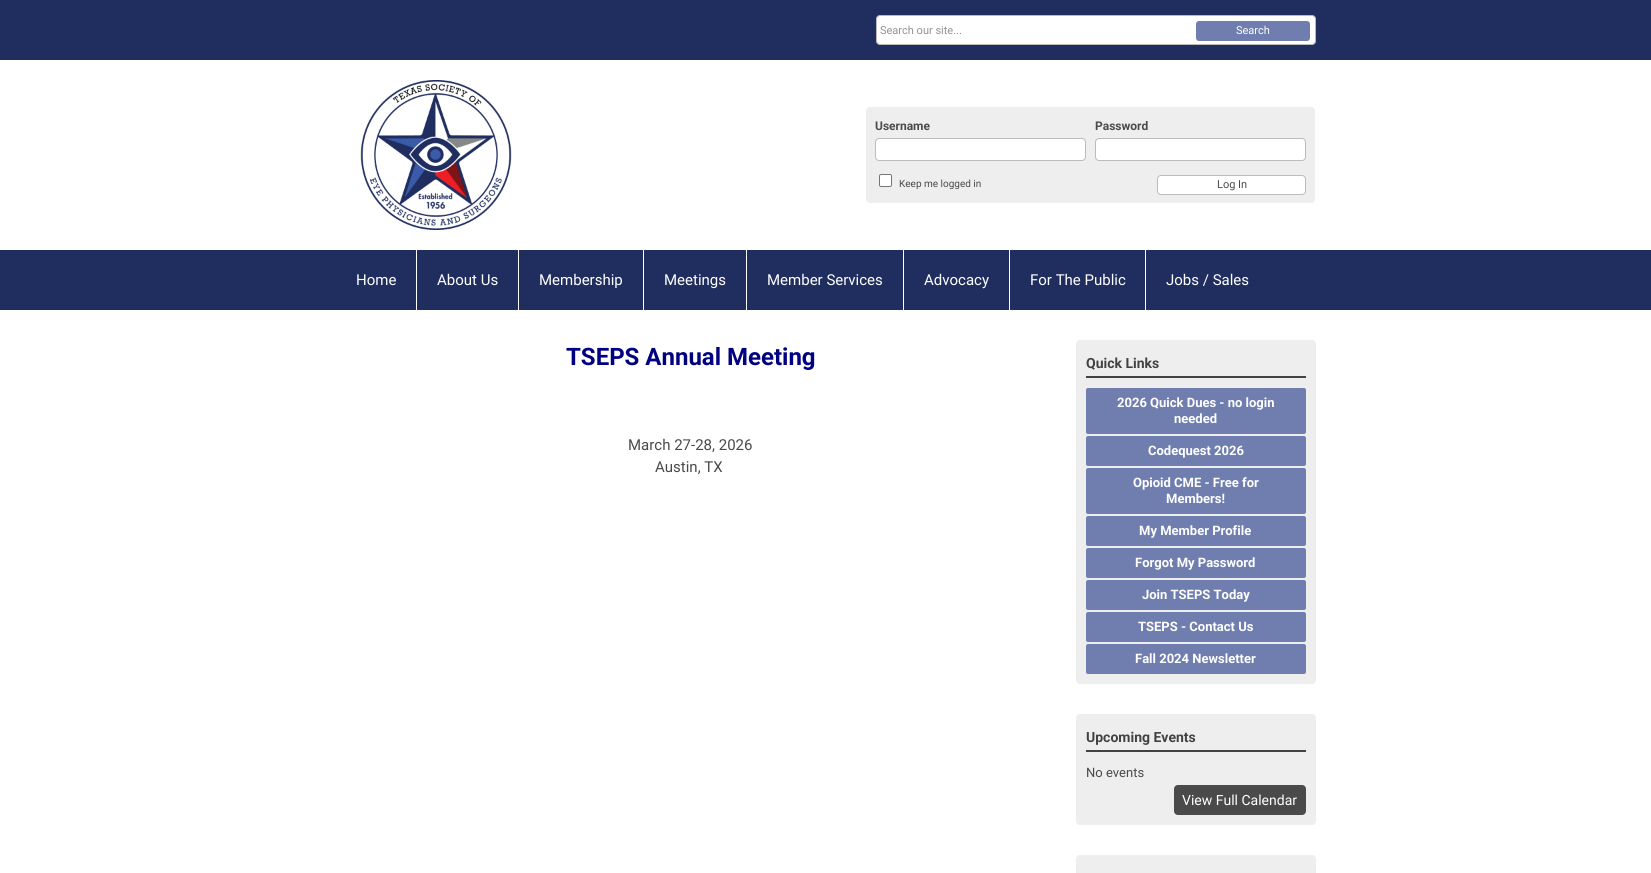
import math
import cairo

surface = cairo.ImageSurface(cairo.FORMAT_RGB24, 1651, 873)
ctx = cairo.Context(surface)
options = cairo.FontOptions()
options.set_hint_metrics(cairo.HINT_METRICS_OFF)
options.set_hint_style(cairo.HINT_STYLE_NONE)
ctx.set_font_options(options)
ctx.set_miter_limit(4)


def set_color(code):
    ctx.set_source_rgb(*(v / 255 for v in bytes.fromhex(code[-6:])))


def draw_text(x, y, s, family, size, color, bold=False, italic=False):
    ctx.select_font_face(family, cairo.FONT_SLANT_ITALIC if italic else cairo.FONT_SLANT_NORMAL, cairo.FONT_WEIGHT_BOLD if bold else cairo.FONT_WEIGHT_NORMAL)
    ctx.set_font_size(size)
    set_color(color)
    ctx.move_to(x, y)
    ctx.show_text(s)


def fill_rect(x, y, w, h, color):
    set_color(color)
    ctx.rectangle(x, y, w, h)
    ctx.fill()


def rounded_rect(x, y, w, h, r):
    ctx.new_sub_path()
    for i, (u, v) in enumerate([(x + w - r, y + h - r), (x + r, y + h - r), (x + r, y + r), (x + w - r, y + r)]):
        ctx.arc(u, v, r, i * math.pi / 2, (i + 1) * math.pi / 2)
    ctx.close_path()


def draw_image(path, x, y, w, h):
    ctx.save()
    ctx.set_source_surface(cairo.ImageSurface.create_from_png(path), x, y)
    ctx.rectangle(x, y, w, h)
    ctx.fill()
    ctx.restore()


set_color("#ffffff")
ctx.paint()
fill_rect(0, 0, 1651, 60, "#202e5f")
set_color("#ffffff")
rounded_rect(876.5, 15.5, 439, 29, 3.5)
ctx.fill_preserve()
set_color("#bbbbbb")
ctx.set_line_width(1)
ctx.stroke()
draw_text(880, 34, "Search our site...", "Roboto", 11, "#929292")
set_color("#6f7eaf")
rounded_rect(1196, 21, 114, 20, 3)
ctx.fill()
draw_text(1236, 34, "Search", "Roboto", 11, "#ffffff")
draw_image("assets/img1.png", 360, 80, 152, 150)
set_color("#eeeeee")
rounded_rect(866, 107, 449, 96, 4)
ctx.fill()
draw_text(875, 130, "Username", "Roboto", 12, "#4a4a4a", bold=True)
set_color("#ffffff")
rounded_rect(875.5, 138.5, 210, 22, 3.5)
ctx.fill_preserve()
set_color("#bbbbbb")
ctx.stroke()
draw_text(1095, 130, "Password", "Roboto", 12, "#4a4a4a", bold=True)
set_color("#ffffff")
rounded_rect(1095.5, 138.5, 210, 22, 3.5)
ctx.fill_preserve()
set_color("#bbbbbb")
ctx.stroke()
set_color("#ffffff")
rounded_rect(879.5, 174.5, 12, 12, 1.5)
ctx.fill_preserve()
set_color("#767676")
ctx.stroke()
draw_text(899, 187, "Keep me logged in", "Roboto", 10, "#4a4a4a")
set_color("#ffffff")
rounded_rect(1157.5, 175.5, 148, 19, 3.5)
ctx.fill_preserve()
set_color("#bbbbbb")
ctx.stroke()
draw_text(1217, 188, "Log In", "Roboto", 11, "#4a4a4a")
fill_rect(0, 250, 1651, 60, "#202e5f")
draw_text(356, 285, "Home", "Roboto", 15, "#ffffff")
fill_rect(416, 250, 1, 60, "#ffffff")
draw_text(437, 285, "About Us", "Roboto", 15, "#ffffff")
fill_rect(518, 250, 1, 60, "#ffffff")
draw_text(539, 285, "Membership", "Roboto", 15, "#ffffff")
fill_rect(643, 250, 1, 60, "#ffffff")
draw_text(664, 285, "Meetings", "Roboto", 15, "#ffffff")
fill_rect(746, 250, 1, 60, "#ffffff")
draw_text(767, 285, "Member Services", "Roboto", 15, "#ffffff")
fill_rect(903, 250, 1, 60, "#ffffff")
draw_text(924, 285, "Advocacy", "Roboto", 15, "#ffffff")
fill_rect(1009, 250, 1, 60, "#ffffff")
draw_text(1030, 285, "For The Public", "Roboto", 15, "#ffffff")
fill_rect(1145, 250, 1, 60, "#ffffff")
draw_text(1166, 285, "Jobs / Sales", "Roboto", 15, "#ffffff")
draw_text(566, 365, "TSEPS Annual Meeting", "Roboto", 24, "#000080", bold=True)
draw_text(628, 450, "March 27-28, 2026", "Roboto", 15, "#4a4a4a")
draw_text(655, 472, "Austin, TX", "Roboto", 15, "#4a4a4a")
set_color("#eeeeee")
rounded_rect(1076, 340, 240, 344, 4)
ctx.fill()
fill_rect(1086, 376, 220, 2, "#424242")
draw_text(1086, 368, "Quick Links", "Roboto", 14, "#424242", bold=True)
set_color("#6f7eaf")
rounded_rect(1086, 388, 220, 46, 2)
ctx.fill()
draw_text(1117, 407, "2026 Quick Dues - no login", "Roboto", 13, "#ffffff", bold=True)
draw_text(1174, 423, "needed", "Roboto", 13, "#ffffff", bold=True)
set_color("#6f7eaf")
rounded_rect(1086, 436, 220, 30, 2)
ctx.fill()
draw_text(1148, 455, "Codequest 2026", "Roboto", 13, "#ffffff", bold=True)
set_color("#6f7eaf")
rounded_rect(1086, 468, 220, 46, 2)
ctx.fill()
draw_text(1133, 487, "Opioid CME - Free for", "Roboto", 13, "#ffffff", bold=True)
draw_text(1166, 503, "Members!", "Roboto", 13, "#ffffff", bold=True)
set_color("#6f7eaf")
rounded_rect(1086, 516, 220, 30, 2)
ctx.fill()
draw_text(1139, 535, "My Member Profile", "Roboto", 13, "#ffffff", bold=True)
set_color("#6f7eaf")
rounded_rect(1086, 548, 220, 30, 2)
ctx.fill()
draw_text(1135, 567, "Forgot My Password", "Roboto", 13, "#ffffff", bold=True)
set_color("#6f7eaf")
rounded_rect(1086, 580, 220, 30, 2)
ctx.fill()
draw_text(1142, 599, "Join TSEPS Today", "Roboto", 13, "#ffffff", bold=True)
set_color("#6f7eaf")
rounded_rect(1086, 612, 220, 30, 2)
ctx.fill()
draw_text(1138, 631, "TSEPS - Contact Us", "Roboto", 13, "#ffffff", bold=True)
set_color("#6f7eaf")
rounded_rect(1086, 644, 220, 30, 2)
ctx.fill()
draw_text(1135, 663, "Fall 2024 Newsletter", "Roboto", 13, "#ffffff", bold=True)
set_color("#eeeeee")
rounded_rect(1076, 714, 240, 111, 4)
ctx.fill()
fill_rect(1086, 750, 220, 2, "#424242")
draw_text(1086, 742, "Upcoming Events", "Roboto", 14, "#424242", bold=True)
draw_text(1086, 777, "No events", "Roboto", 13, "#4a4a4a")
rounded_rect(1174, 785, 132, 30, 4)
ctx.fill()
draw_text(1182, 805, "View Full Calendar", "Roboto", 14, "#ffffff")
set_color("#eeeeee")
rounded_rect(1076, 855, 240, 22, 4)
ctx.fill()
surface.write_to_png("output.png")
